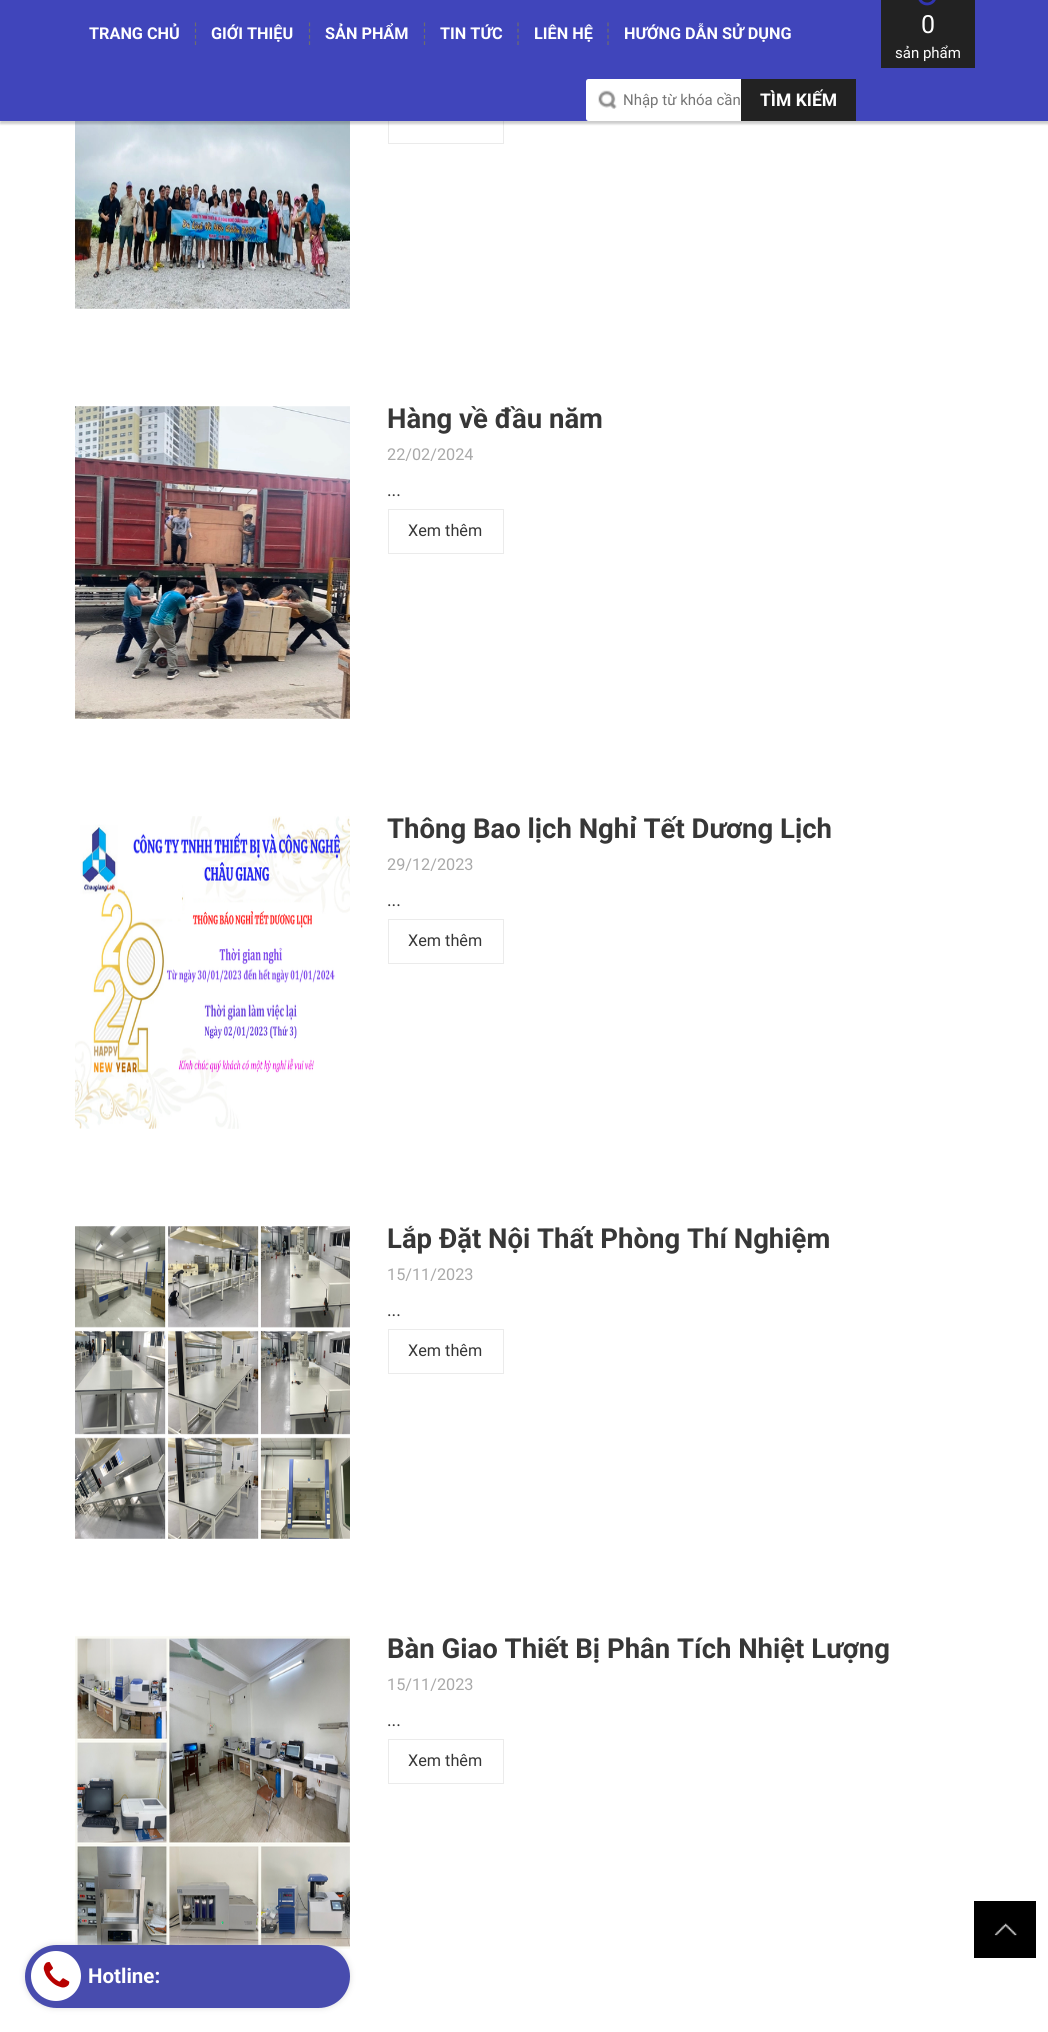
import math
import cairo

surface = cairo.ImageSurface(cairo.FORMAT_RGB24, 1048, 2032)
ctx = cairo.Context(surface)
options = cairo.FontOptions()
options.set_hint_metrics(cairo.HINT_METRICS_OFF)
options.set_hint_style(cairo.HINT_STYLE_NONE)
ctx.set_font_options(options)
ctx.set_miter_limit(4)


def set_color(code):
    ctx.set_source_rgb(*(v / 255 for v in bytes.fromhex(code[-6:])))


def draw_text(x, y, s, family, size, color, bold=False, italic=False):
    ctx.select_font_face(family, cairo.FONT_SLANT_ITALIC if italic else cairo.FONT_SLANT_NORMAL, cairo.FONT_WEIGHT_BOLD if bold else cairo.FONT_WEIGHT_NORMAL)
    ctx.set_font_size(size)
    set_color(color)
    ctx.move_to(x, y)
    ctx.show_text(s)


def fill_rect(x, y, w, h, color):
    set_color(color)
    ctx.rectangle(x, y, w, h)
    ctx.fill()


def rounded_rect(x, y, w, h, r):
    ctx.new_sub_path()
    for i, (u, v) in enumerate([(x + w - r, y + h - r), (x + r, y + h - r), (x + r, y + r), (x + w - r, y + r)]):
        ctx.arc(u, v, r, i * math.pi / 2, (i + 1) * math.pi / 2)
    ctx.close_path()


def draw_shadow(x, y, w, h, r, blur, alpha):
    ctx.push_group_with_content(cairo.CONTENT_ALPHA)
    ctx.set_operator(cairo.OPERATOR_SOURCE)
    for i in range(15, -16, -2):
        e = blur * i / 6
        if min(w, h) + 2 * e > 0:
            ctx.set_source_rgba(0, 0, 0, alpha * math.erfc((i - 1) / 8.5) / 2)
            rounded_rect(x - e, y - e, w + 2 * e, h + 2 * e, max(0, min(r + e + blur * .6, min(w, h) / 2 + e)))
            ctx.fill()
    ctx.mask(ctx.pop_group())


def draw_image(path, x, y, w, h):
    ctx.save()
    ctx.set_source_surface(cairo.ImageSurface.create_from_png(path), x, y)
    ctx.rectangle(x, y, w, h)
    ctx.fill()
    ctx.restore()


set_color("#ffffff")
ctx.paint()
draw_image("assets/img3.png", 75, 121, 275, 188)
ctx.rectangle(388.5, 99.5, 115, 44)
set_color("#ebebeb")
ctx.set_line_width(1)
ctx.stroke()
set_color("#000000")
draw_shadow(0, 3, 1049, 121, 0, 1, 0.2)
fill_rect(0, 0, 1048, 121, "#4045bb")
ctx.new_path()
ctx.move_to(195.5, 22.5)
ctx.line_to(195.5, 45)
set_color("#6d6d6d")
ctx.set_line_width(1.2)
ctx.set_dash([3.75, 2.5])
ctx.stroke()
draw_text(89, 39, "TRANG CHỦ", "Roboto", 16.25, "#ffffff", bold=True)
ctx.new_path()
ctx.move_to(309.5, 22.5)
ctx.line_to(309.5, 45)
set_color("#6d6d6d")
ctx.stroke()
draw_text(211, 39, "GIỚI THIỆU", "Roboto", 16.25, "#ffffff", bold=True)
ctx.new_path()
ctx.move_to(424.5, 22.5)
ctx.line_to(424.5, 45)
set_color("#6d6d6d")
ctx.stroke()
draw_text(325, 39, "SẢN PHẨM", "Roboto", 16.25, "#ffffff", bold=True)
ctx.new_path()
ctx.move_to(518, 22.5)
ctx.line_to(518, 45)
set_color("#6d6d6d")
ctx.stroke()
draw_text(440, 39, "TIN TỨC", "Roboto", 16.25, "#ffffff", bold=True)
ctx.new_path()
ctx.move_to(608, 22.5)
ctx.line_to(608, 45)
set_color("#6d6d6d")
ctx.stroke()
draw_text(534, 39, "LIÊN HỆ", "Roboto", 16.25, "#ffffff", bold=True)
draw_text(624, 39, "HƯỚNG DẪN SỬ DỤNG", "Roboto", 16.25, "#ffffff", bold=True)
fill_rect(881, 0, 94, 68, "#222222")
draw_image("assets/img1.png", 918, 0, 18, 6)
draw_text(921, 33, "0", "Roboto", 25, "#ffffff")
draw_text(895, 58, "sản phẩm", "Roboto", 15, "#ffffff")
rounded_rect(586, 79, 270, 42, 2.5)
ctx.fill()
draw_image("assets/img2.png", 598, 90, 19, 19)
draw_text(623, 105, "Nhập từ khóa cần", "Roboto", 15, "#757575")
fill_rect(741, 79, 115, 42, "#222222")
draw_text(760, 106, "TÌM KIẾM", "Roboto", 17.5, "#ffffff", bold=True)
draw_image("assets/img4.png", 75, 406, 275, 313)
draw_text(387, 428, "Hàng về đầu năm", "Roboto", 27.5, "#373737", bold=True)
draw_text(387, 460, "22/02/2024", "Roboto", 16.25, "#a9a9a9")
draw_text(387, 496, "...", "Roboto", 17.5, "#373737")
ctx.rectangle(388.5, 509.5, 115, 44)
set_color("#ebebeb")
ctx.set_line_width(1)
ctx.set_dash([])
ctx.stroke()
draw_text(408, 536, "Xem thêm", "Roboto", 16.25, "#373737")
draw_image("assets/img5.png", 75, 816, 275, 313)
draw_text(387, 838, "Thông Bao lịch Nghỉ Tết Dương Lịch", "Roboto", 27.5, "#373737", bold=True)
draw_text(387, 870, "29/12/2023", "Roboto", 16.25, "#a9a9a9")
draw_text(387, 906, "...", "Roboto", 17.5, "#373737")
ctx.rectangle(388.5, 919.5, 115, 44)
set_color("#ebebeb")
ctx.stroke()
draw_text(408, 946, "Xem thêm", "Roboto", 16.25, "#373737")
draw_image("assets/img6.png", 75, 1226, 275, 313)
draw_text(387, 1248, "Lắp Đặt Nội Thất Phòng Thí Nghiệm", "Roboto", 27.5, "#373737", bold=True)
draw_text(387, 1280, "15/11/2023", "Roboto", 16.25, "#a9a9a9")
draw_text(387, 1316, "...", "Roboto", 17.5, "#373737")
ctx.rectangle(388.5, 1329.5, 115, 44)
set_color("#ebebeb")
ctx.stroke()
draw_text(408, 1356, "Xem thêm", "Roboto", 16.25, "#373737")
draw_image("assets/img7.png", 75, 1636, 275, 313)
draw_text(387, 1658, "Bàn Giao Thiết Bị Phân Tích Nhiệt Lượng", "Roboto", 27.5, "#373737", bold=True)
draw_text(387, 1690, "15/11/2023", "Roboto", 16.25, "#a9a9a9")
draw_text(387, 1726, "...", "Roboto", 17.5, "#373737")
ctx.rectangle(388.5, 1739.5, 115, 44)
set_color("#ebebeb")
ctx.stroke()
draw_text(408, 1766, "Xem thêm", "Roboto", 16.25, "#373737")
set_color("#dddddd")
draw_shadow(25, 1945, 325, 63, 31.5, 3, 1)
set_color("#484cae")
rounded_rect(25, 1945, 325, 63, 31.5)
ctx.fill()
set_color("#ffffff")
ctx.arc(56, 1976, 25, 0, 2 * math.pi)
ctx.fill()
draw_image("assets/img8.png", 43, 1962, 27, 26)
draw_text(88, 1983, "Hotline:", "Roboto", 20.5, "#ffffff", bold=True)
fill_rect(974, 1901, 62, 57, "#000000")
draw_image("assets/img9.png", 994, 1923, 23, 13)
surface.write_to_png("output.png")
